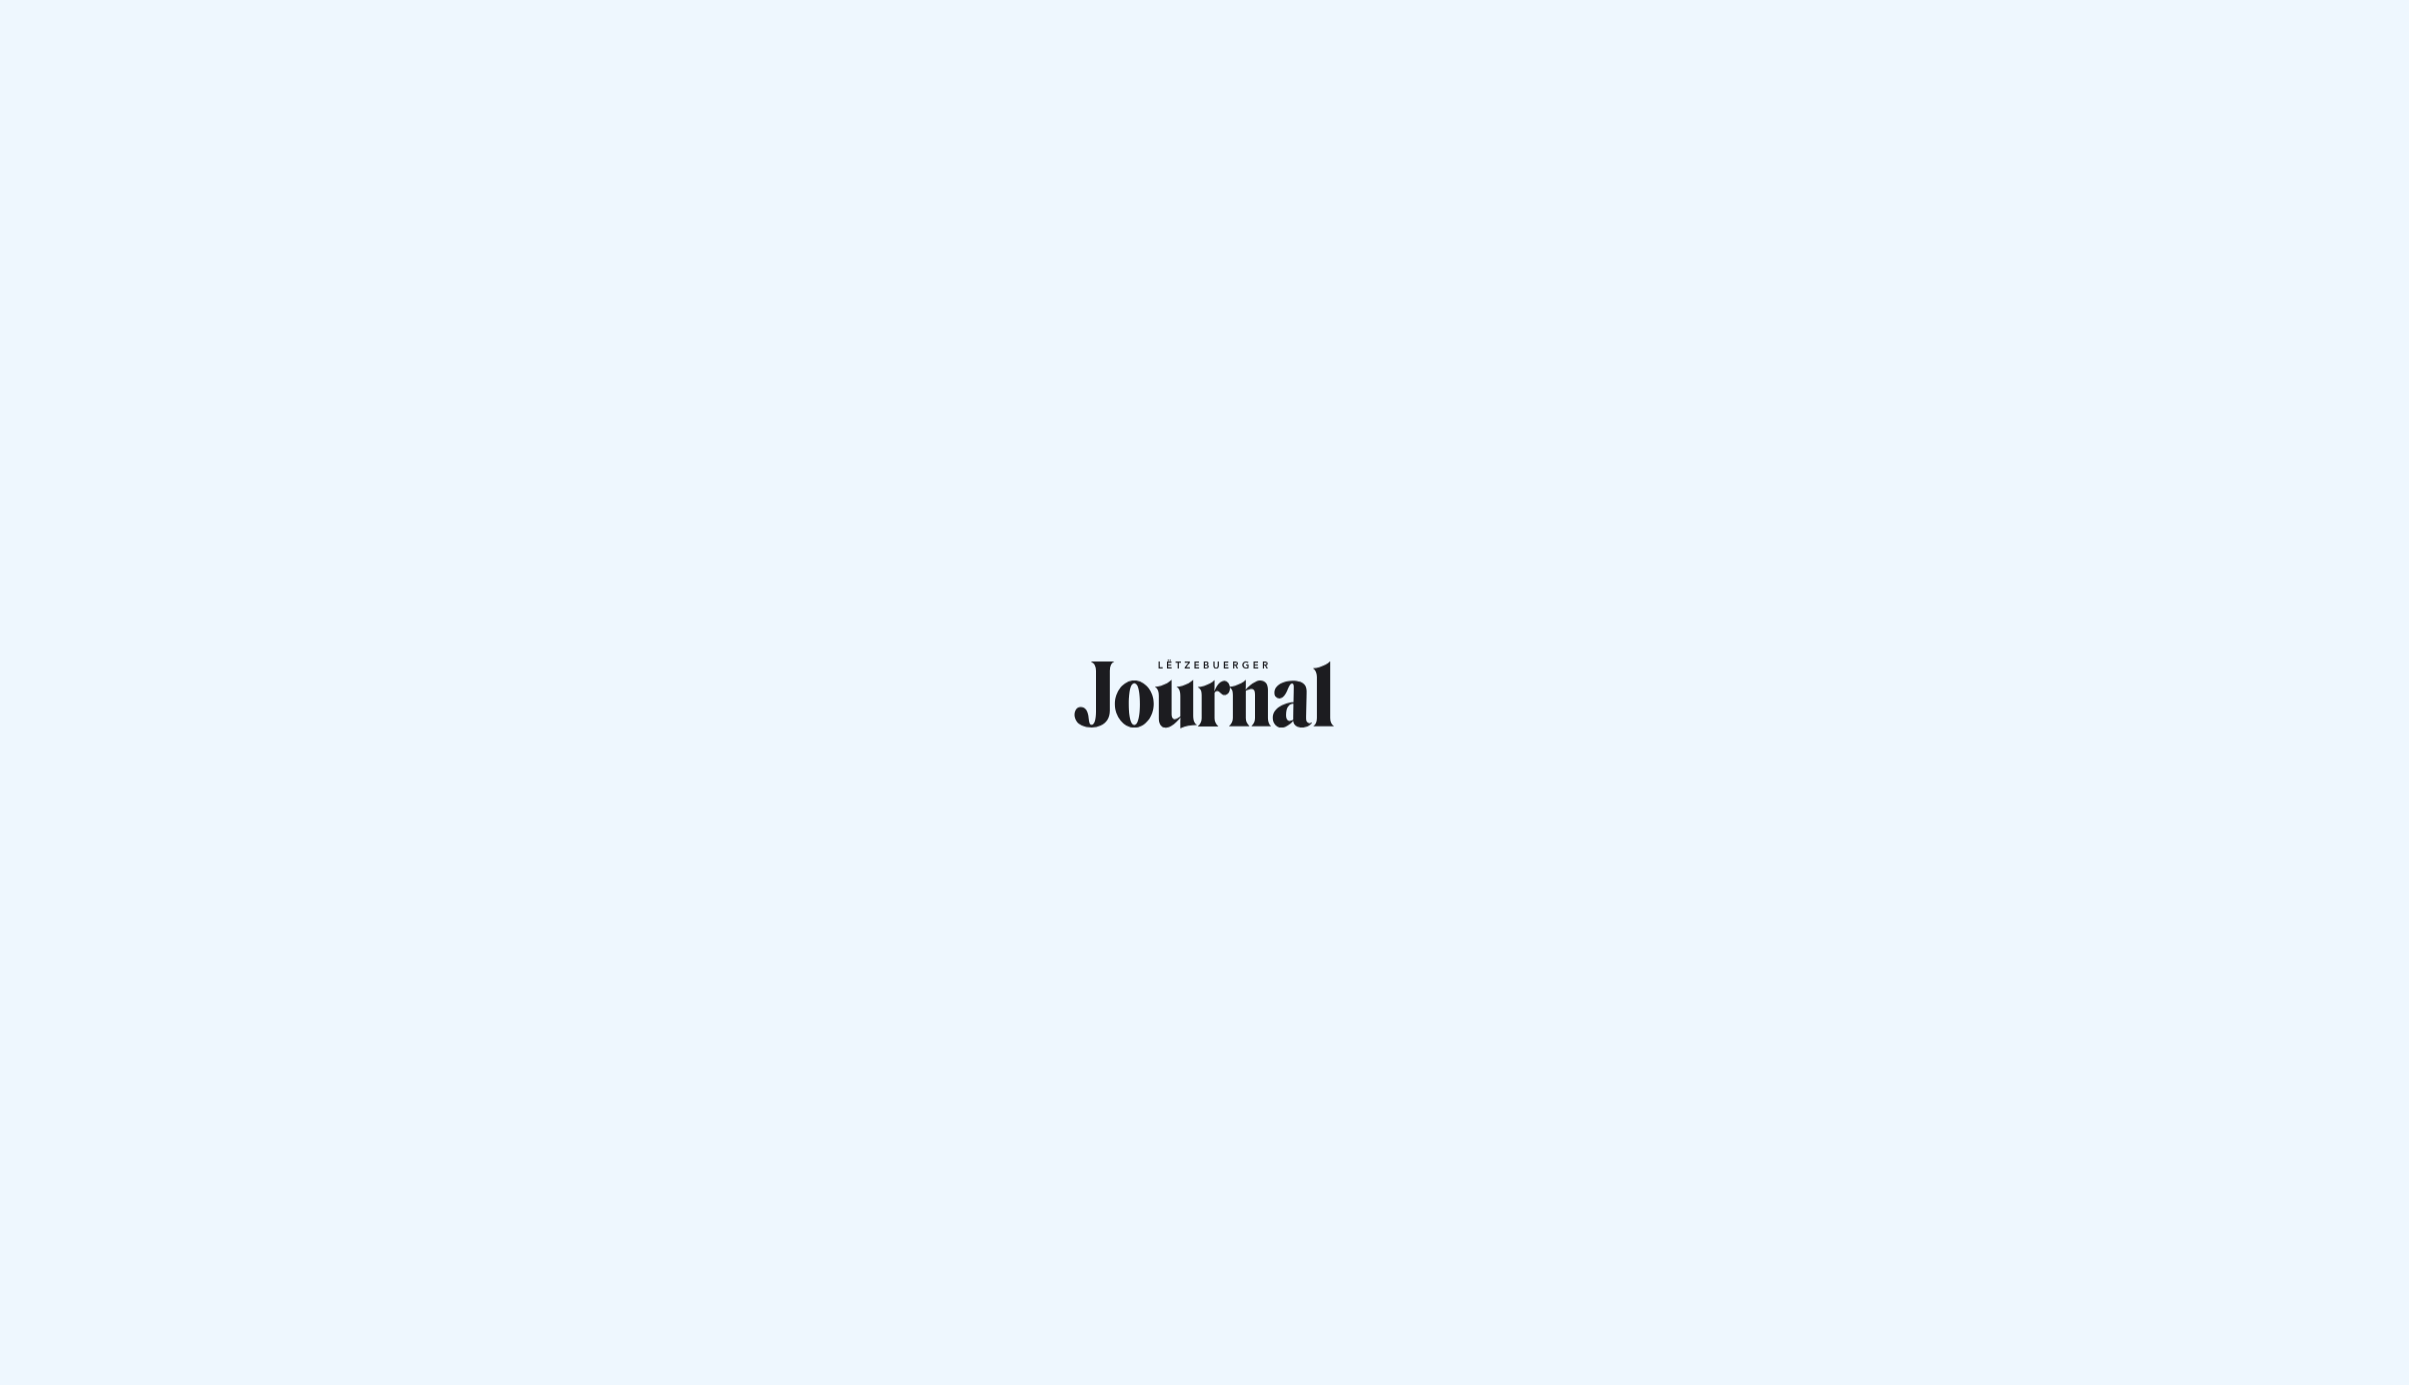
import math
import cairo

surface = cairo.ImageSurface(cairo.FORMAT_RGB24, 2409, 1385)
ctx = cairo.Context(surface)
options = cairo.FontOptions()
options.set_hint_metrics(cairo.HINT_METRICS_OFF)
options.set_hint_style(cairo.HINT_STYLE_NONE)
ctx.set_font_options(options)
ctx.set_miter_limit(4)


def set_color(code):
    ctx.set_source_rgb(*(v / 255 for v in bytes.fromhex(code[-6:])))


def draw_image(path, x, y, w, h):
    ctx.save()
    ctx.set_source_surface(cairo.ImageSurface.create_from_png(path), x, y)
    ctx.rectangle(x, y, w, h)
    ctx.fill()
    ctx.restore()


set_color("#eef7fe")
ctx.paint()
draw_image("assets/img1.png", 1074, 659, 260, 70)
surface.write_to_png("output.png")
